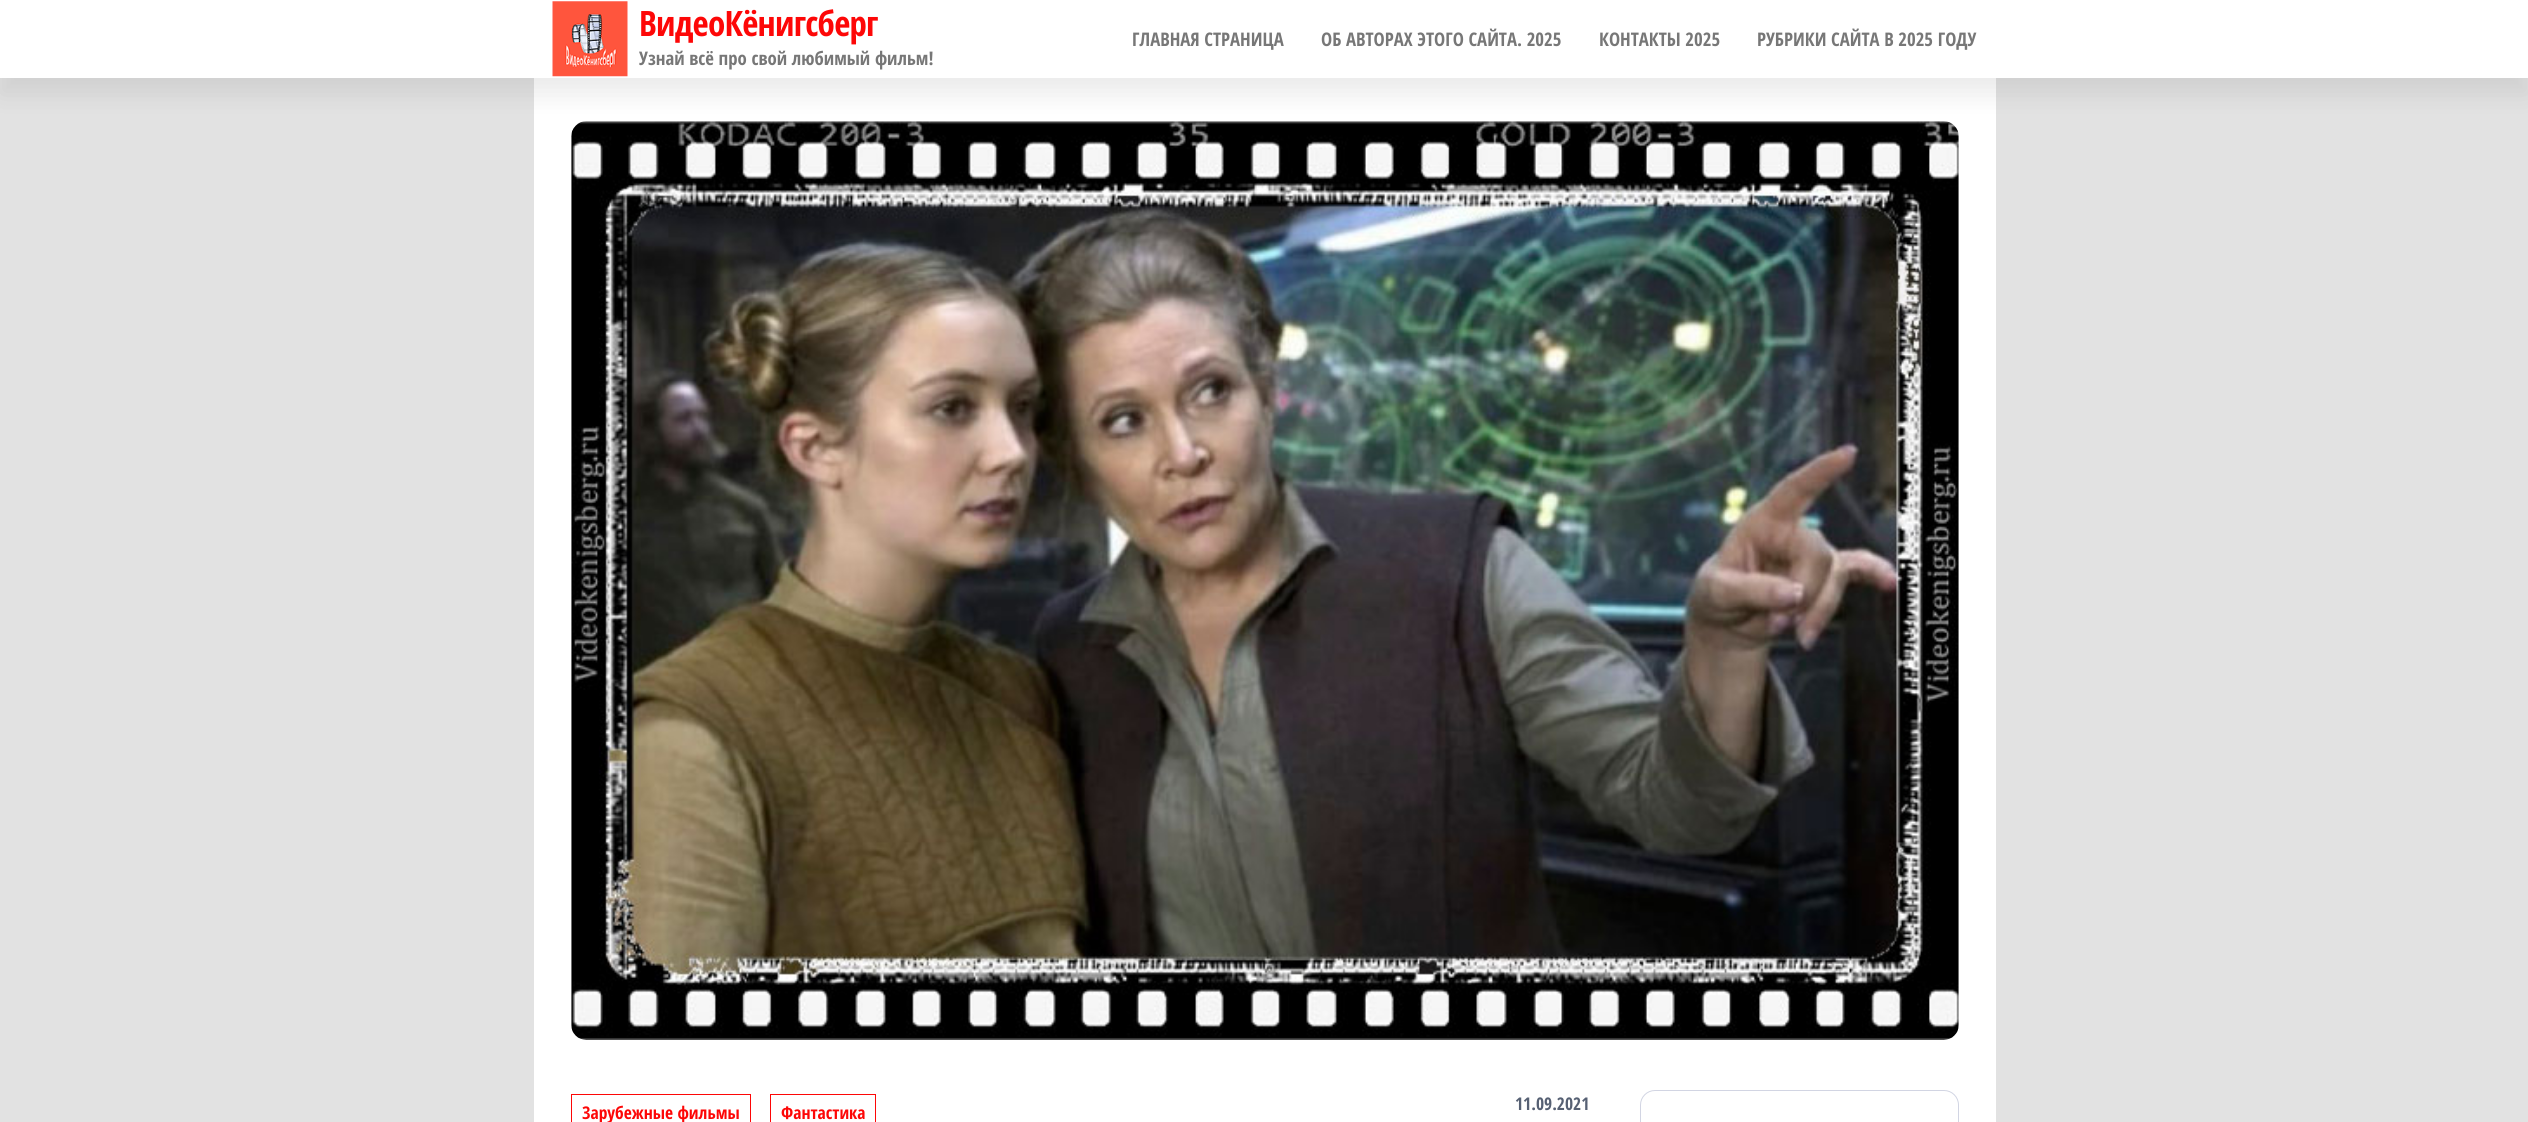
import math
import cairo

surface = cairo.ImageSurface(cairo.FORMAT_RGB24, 2528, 1122)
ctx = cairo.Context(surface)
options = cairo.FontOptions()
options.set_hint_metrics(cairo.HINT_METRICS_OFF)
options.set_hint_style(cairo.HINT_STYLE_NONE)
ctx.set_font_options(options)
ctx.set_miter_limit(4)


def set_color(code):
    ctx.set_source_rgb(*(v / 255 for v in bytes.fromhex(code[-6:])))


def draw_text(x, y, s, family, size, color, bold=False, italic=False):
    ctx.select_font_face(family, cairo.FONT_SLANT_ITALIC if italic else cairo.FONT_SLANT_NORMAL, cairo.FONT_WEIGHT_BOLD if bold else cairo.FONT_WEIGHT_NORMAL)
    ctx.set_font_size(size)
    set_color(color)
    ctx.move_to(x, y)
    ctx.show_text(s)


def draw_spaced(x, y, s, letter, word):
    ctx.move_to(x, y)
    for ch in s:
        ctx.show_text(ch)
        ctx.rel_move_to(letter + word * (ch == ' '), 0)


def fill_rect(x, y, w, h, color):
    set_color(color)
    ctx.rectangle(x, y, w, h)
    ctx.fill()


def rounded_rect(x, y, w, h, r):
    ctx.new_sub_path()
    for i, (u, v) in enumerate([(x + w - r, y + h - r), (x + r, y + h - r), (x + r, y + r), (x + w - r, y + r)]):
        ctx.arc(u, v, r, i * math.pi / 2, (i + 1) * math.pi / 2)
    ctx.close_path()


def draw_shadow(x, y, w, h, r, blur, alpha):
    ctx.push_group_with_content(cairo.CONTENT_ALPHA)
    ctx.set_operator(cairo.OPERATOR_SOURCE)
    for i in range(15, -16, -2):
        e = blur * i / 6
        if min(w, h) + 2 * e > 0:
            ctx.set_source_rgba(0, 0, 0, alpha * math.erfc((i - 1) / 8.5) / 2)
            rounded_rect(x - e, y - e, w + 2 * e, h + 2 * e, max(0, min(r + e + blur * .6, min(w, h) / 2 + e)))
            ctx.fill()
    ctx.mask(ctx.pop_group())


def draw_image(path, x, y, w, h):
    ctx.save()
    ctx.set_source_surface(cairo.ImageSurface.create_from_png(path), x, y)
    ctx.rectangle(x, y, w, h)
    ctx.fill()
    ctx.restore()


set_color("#e2e2e2")
ctx.paint()
fill_rect(534, 78, 1462, 1044, "#ffffff")
set_color("#000000")
draw_shadow(0, 18, 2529, 77, 0, 12.5, 0.08)
fill_rect(0, 0, 2528, 78, "#ffffff")
draw_image("assets/img1.png", 552, 1, 76, 76)
ctx.select_font_face("Open Sans Condensed", cairo.FONT_SLANT_NORMAL, cairo.FONT_WEIGHT_BOLD)
ctx.set_font_size(35)
set_color("#fd0707")
draw_spaced(639, 36, "ВидеоКёнигсберг", -0.75, 0)
draw_text(639, 65, "Узнай всё про свой любимый фильм!", "Open Sans Condensed", 18.75, "#777777", bold=True)
draw_text(1132, 46, "ГЛАВНАЯ СТРАНИЦА", "Open Sans Condensed", 18.75, "#777777", bold=True)
draw_text(1321, 46, "ОБ АВТОРАХ ЭТОГО САЙТА. 2025", "Open Sans Condensed", 18.75, "#777777", bold=True)
draw_text(1599, 46, "КОНТАКТЫ 2025", "Open Sans Condensed", 18.75, "#777777", bold=True)
draw_text(1757, 46, "РУБРИКИ САЙТА В 2025 ГОДУ", "Open Sans Condensed", 18.75, "#777777", bold=True)
draw_image("assets/img2.png", 571, 121, 1388, 919)
ctx.rectangle(571.5, 1094.5, 179, 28)
set_color("#fd0707")
ctx.set_line_width(1)
ctx.stroke()
draw_text(582, 1119, "Зарубежные фильмы", "Open Sans Condensed", 17.5, "#fd0707", bold=True)
ctx.rectangle(770.5, 1094.5, 105, 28)
ctx.stroke()
draw_text(781, 1119, "Фантастика", "Open Sans Condensed", 17.5, "#fd0707", bold=True)
draw_text(1515, 1110, "11.09.2021", "Open Sans Condensed", 17.5, "#566073", bold=True)
rounded_rect(1640.5, 1090.5, 318, 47, 14.5)
set_color("#d2d5e3")
ctx.stroke()
surface.write_to_png("output.png")
